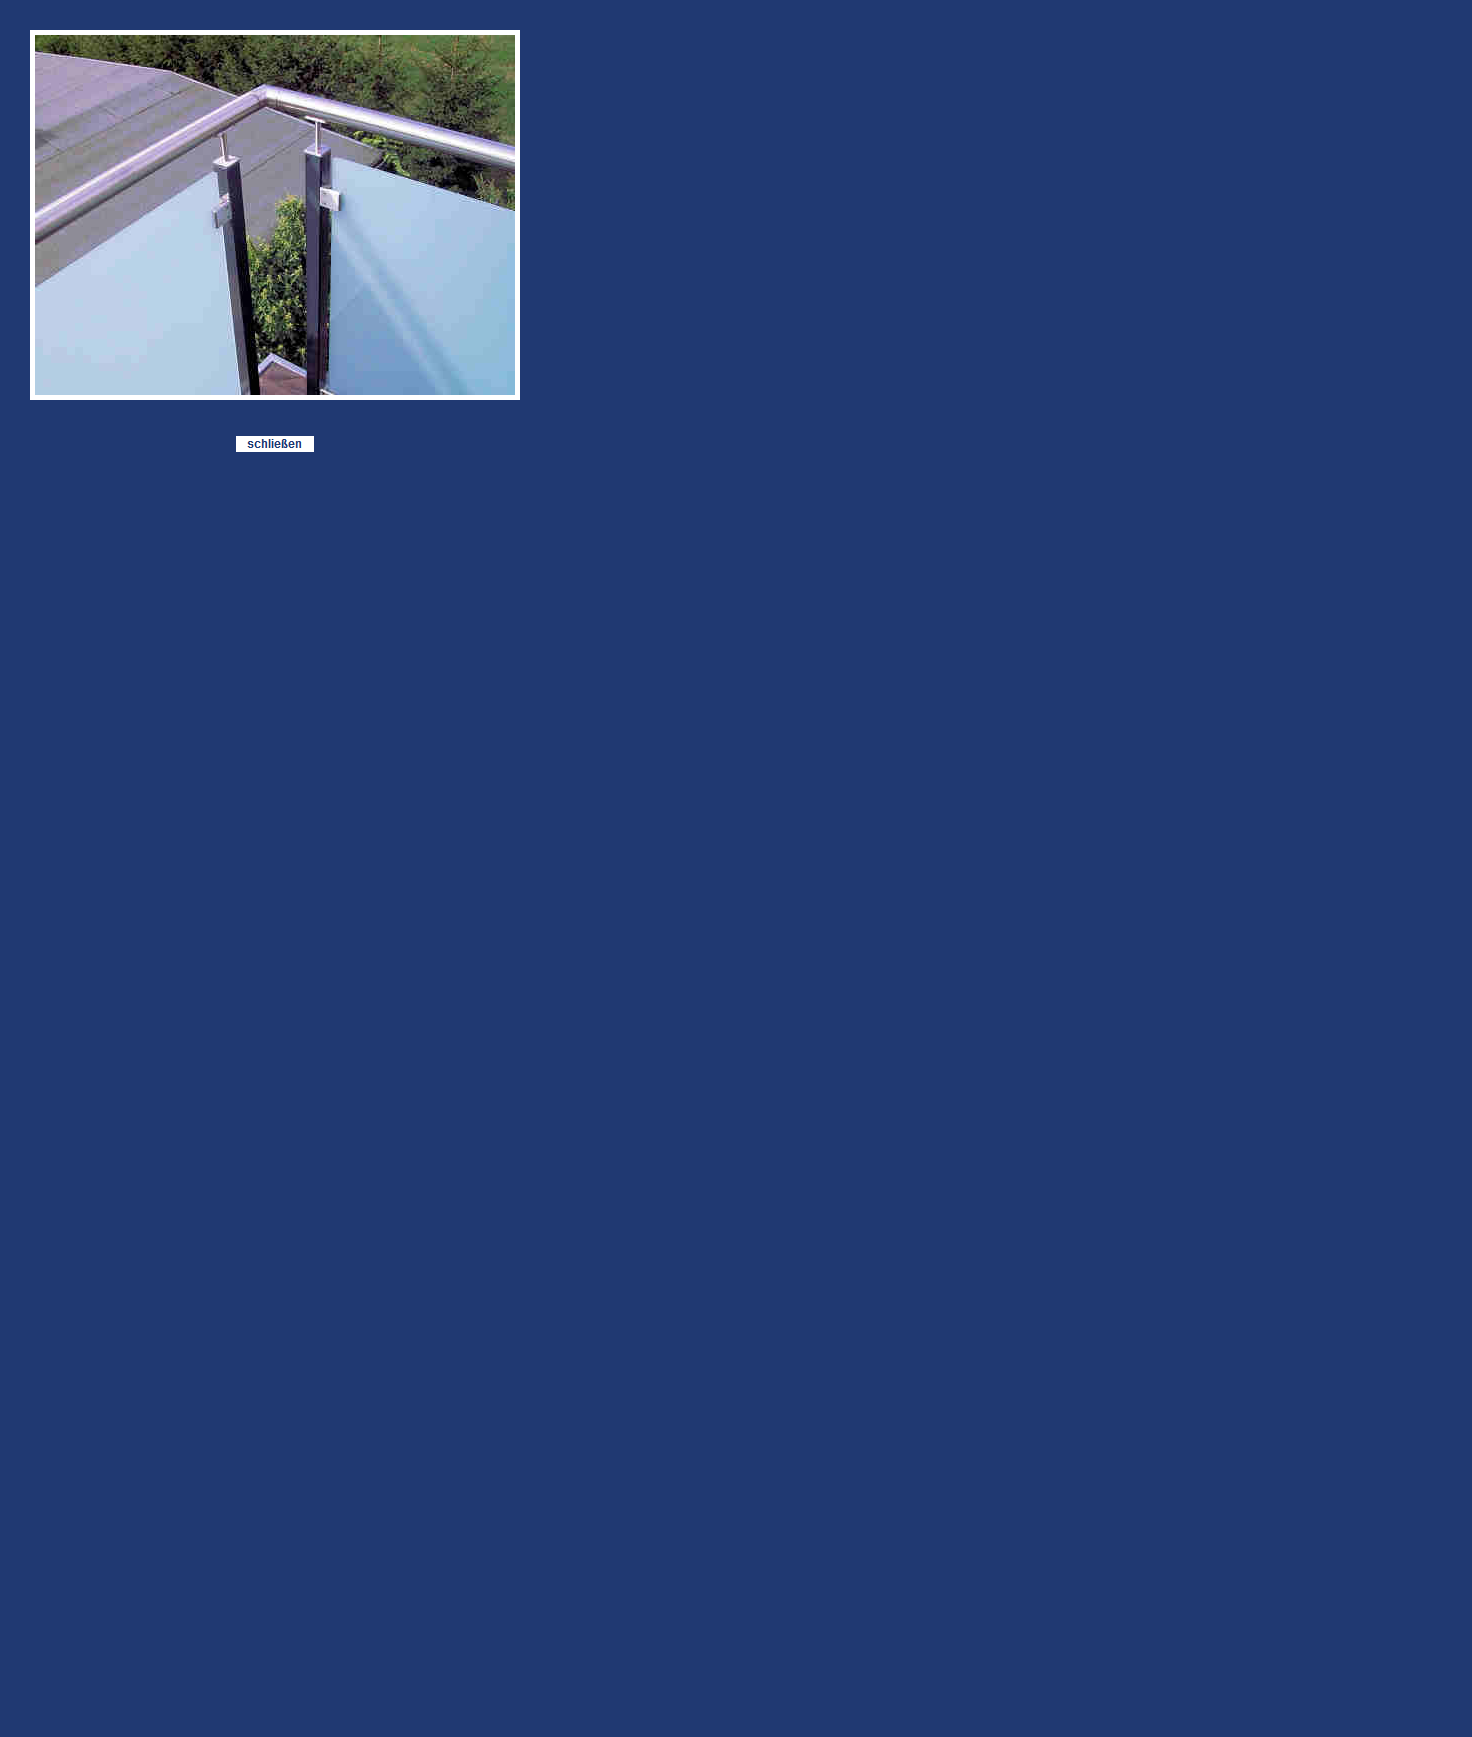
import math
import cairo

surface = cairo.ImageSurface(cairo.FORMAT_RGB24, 1472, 1737)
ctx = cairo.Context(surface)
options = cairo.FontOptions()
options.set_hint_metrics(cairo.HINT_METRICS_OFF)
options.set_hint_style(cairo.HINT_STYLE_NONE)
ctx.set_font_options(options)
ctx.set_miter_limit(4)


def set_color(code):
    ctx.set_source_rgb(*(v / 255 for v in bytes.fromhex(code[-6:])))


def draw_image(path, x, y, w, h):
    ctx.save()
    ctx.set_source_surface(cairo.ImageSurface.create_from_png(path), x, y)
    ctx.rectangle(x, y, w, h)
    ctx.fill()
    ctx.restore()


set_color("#203972")
ctx.paint()
ctx.rectangle(32.5, 32.5, 485, 365)
set_color("#ffffff")
ctx.set_line_width(5)
ctx.stroke()
draw_image("assets/img1.png", 35, 35, 480, 360)
draw_image("assets/img2.png", 236, 436, 78, 16)
surface.write_to_png("output.png")
